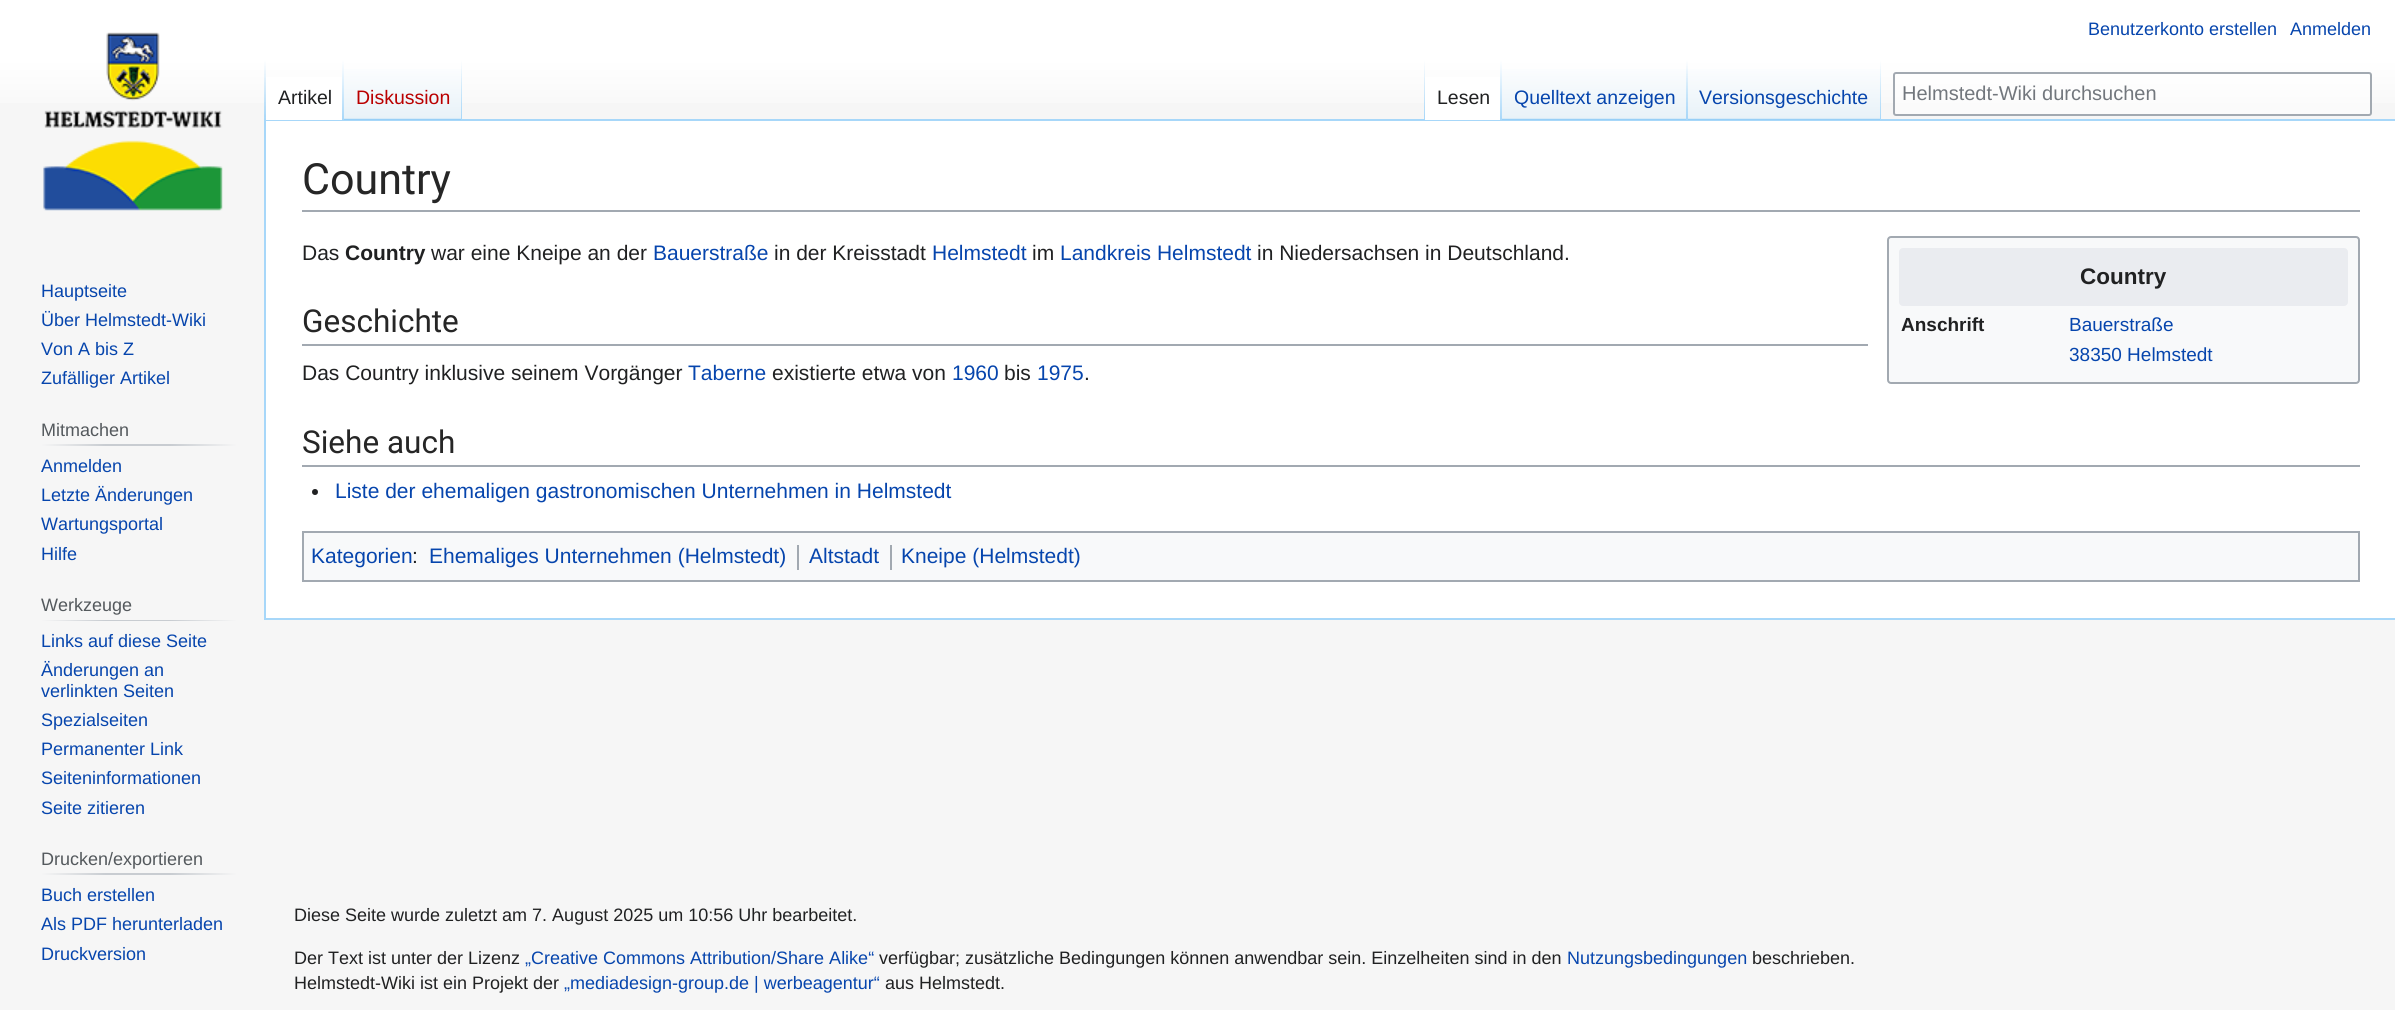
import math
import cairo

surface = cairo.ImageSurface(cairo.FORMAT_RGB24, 2395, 1010)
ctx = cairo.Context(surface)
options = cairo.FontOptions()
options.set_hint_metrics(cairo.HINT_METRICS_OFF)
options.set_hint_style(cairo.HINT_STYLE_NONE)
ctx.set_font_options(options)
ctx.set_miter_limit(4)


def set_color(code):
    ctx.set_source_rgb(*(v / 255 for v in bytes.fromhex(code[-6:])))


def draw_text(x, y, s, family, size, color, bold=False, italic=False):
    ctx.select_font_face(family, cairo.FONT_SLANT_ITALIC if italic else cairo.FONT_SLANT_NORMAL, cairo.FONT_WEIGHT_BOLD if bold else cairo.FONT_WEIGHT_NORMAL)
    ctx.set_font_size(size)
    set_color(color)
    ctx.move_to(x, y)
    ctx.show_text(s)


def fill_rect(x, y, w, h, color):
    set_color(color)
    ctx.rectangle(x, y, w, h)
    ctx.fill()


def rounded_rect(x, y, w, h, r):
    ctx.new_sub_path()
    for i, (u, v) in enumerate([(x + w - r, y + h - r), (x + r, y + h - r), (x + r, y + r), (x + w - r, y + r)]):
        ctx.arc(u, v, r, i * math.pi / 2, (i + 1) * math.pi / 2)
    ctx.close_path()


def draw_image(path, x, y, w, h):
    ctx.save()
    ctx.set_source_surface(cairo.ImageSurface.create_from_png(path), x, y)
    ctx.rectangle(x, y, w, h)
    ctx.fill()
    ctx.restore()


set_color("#f6f6f6")
ctx.paint()
gradient = cairo.LinearGradient(1198, 0, 1198, 120)
gradient.add_color_stop_rgba(0.5, 1, 1, 1, 1)
gradient.add_color_stop_rgba(1, 0.965, 0.965, 0.965, 1)
ctx.set_source(gradient)
ctx.rectangle(0, 0, 2395, 103)
ctx.fill()
draw_text(2088, 35, "Benutzerkonto erstellen", "Liberation Sans", 18, "#0645ad")
draw_text(2290, 35, "Anmelden", "Liberation Sans", 18, "#0645ad")
fill_rect(264, 119, 2131, 2, "#a7d7f9")
fill_rect(264, 618, 2131, 2, "#a7d7f9")
fill_rect(264, 119, 2, 501, "#a7d7f9")
gradient = cairo.LinearGradient(265, 60, 265, 120)
gradient.add_color_stop_rgba(0, 0.655, 0.843, 0.976, 0)
gradient.add_color_stop_rgba(1, 0.655, 0.843, 0.976, 1)
ctx.set_source(gradient)
ctx.rectangle(264, 60, 2, 60)
ctx.fill()
fill_rect(266, 77, 76, 43, "#ffffff")
gradient = cairo.LinearGradient(343, 60, 343, 120)
gradient.add_color_stop_rgba(0, 1, 1, 1, 1)
gradient.add_color_stop_rgba(1, 0.655, 0.843, 0.976, 1)
ctx.set_source(gradient)
ctx.rectangle(342, 60, 2, 60)
ctx.fill()
draw_text(278, 104, "Artikel", "Liberation Sans", 19.5, "#202122")
gradient = cairo.LinearGradient(403, 120, 403, 60)
gradient.add_color_stop_rgba(0, 0.467, 0.757, 0.965, 1)
gradient.add_color_stop_rgba(0.03, 0.91, 0.949, 0.973, 1)
gradient.add_color_stop_rgba(1, 1, 1, 1, 1)
ctx.set_source(gradient)
ctx.rectangle(344, 69, 118, 51)
ctx.fill()
gradient = cairo.LinearGradient(461, 60, 461, 120)
gradient.add_color_stop_rgba(0, 0.655, 0.843, 0.976, 0)
gradient.add_color_stop_rgba(1, 0.655, 0.843, 0.976, 1)
ctx.set_source(gradient)
ctx.rectangle(461, 60, 1, 60)
ctx.fill()
draw_text(356, 104, "Diskussion", "Liberation Sans", 19.5, "#ba0000")
gradient = cairo.LinearGradient(1424, 60, 1424, 120)
gradient.add_color_stop_rgba(0, 0.655, 0.843, 0.976, 0)
gradient.add_color_stop_rgba(1, 0.655, 0.843, 0.976, 1)
ctx.set_source(gradient)
ctx.rectangle(1424, 60, 1, 60)
ctx.fill()
fill_rect(1425, 77, 75, 43, "#ffffff")
gradient = cairo.LinearGradient(1501, 60, 1501, 120)
gradient.add_color_stop_rgba(0, 1, 1, 1, 1)
gradient.add_color_stop_rgba(1, 0.655, 0.843, 0.976, 1)
ctx.set_source(gradient)
ctx.rectangle(1500, 60, 2, 60)
ctx.fill()
draw_text(1437, 104, "Lesen", "Liberation Sans", 19.5, "#202122")
gradient = cairo.LinearGradient(1595, 120, 1595, 60)
gradient.add_color_stop_rgba(0, 0.467, 0.757, 0.965, 1)
gradient.add_color_stop_rgba(0.03, 0.91, 0.949, 0.973, 1)
gradient.add_color_stop_rgba(1, 1, 1, 1, 1)
ctx.set_source(gradient)
ctx.rectangle(1502, 69, 186, 51)
ctx.fill()
gradient = cairo.LinearGradient(1687, 60, 1687, 120)
gradient.add_color_stop_rgba(0, 0.655, 0.843, 0.976, 0)
gradient.add_color_stop_rgba(1, 0.655, 0.843, 0.976, 1)
ctx.set_source(gradient)
ctx.rectangle(1686, 60, 2, 60)
ctx.fill()
draw_text(1514, 104, "Quelltext anzeigen", "Liberation Sans", 19.5, "#0645ad")
gradient = cairo.LinearGradient(1784, 120, 1784, 60)
gradient.add_color_stop_rgba(0, 0.467, 0.757, 0.965, 1)
gradient.add_color_stop_rgba(0.03, 0.91, 0.949, 0.973, 1)
gradient.add_color_stop_rgba(1, 1, 1, 1, 1)
ctx.set_source(gradient)
ctx.rectangle(1688, 69, 193, 51)
ctx.fill()
gradient = cairo.LinearGradient(1880, 60, 1880, 120)
gradient.add_color_stop_rgba(0, 0.655, 0.843, 0.976, 0)
gradient.add_color_stop_rgba(1, 0.655, 0.843, 0.976, 1)
ctx.set_source(gradient)
ctx.rectangle(1880, 60, 1, 60)
ctx.fill()
draw_text(1699, 104, "Versionsgeschichte", "Liberation Sans", 19.5, "#0645ad")
ctx.set_source_rgba(1, 1, 1, 0.5)
rounded_rect(1894, 73, 477, 42, 2)
ctx.fill_preserve()
set_color("#a2a9b1")
ctx.stroke()
draw_text(1902, 100, "Helmstedt-Wiki durchsuchen", "Liberation Sans", 20, "#72777d")
draw_image("assets/img1.png", 43, 32, 180, 179)
draw_text(41, 297, "Hauptseite", "Liberation Sans", 18, "#0645ad")
draw_text(41, 326, "Über Helmstedt-Wiki", "Liberation Sans", 18, "#0645ad")
draw_text(41, 355, "Von A bis Z", "Liberation Sans", 18, "#0645ad")
draw_text(41, 384, "Zufälliger Artikel", "Liberation Sans", 18, "#0645ad")
gradient = cairo.LinearGradient(41, 445, 237, 445)
gradient.add_color_stop_rgba(0, 0.965, 0.965, 0.965, 1)
gradient.add_color_stop_rgba(0.33, 0.784, 0.8, 0.82, 1)
gradient.add_color_stop_rgba(0.66, 0.784, 0.8, 0.82, 1)
gradient.add_color_stop_rgba(1, 0.965, 0.965, 0.965, 1)
ctx.set_source(gradient)
ctx.rectangle(41, 444, 196, 2)
ctx.fill()
draw_text(41, 436, "Mitmachen", "Liberation Sans", 18, "#54595d")
draw_text(41, 472, "Anmelden", "Liberation Sans", 18, "#0645ad")
draw_text(41, 501, "Letzte Änderungen", "Liberation Sans", 18, "#0645ad")
draw_text(41, 530, "Wartungsportal", "Liberation Sans", 18, "#0645ad")
draw_text(41, 560, "Hilfe", "Liberation Sans", 18, "#0645ad")
gradient = cairo.LinearGradient(41, 620, 237, 620)
gradient.add_color_stop_rgba(0, 0.965, 0.965, 0.965, 1)
gradient.add_color_stop_rgba(0.33, 0.784, 0.8, 0.82, 1)
gradient.add_color_stop_rgba(0.66, 0.784, 0.8, 0.82, 1)
gradient.add_color_stop_rgba(1, 0.965, 0.965, 0.965, 1)
ctx.set_source(gradient)
ctx.rectangle(41, 620, 196, 1)
ctx.fill()
draw_text(41, 611, "Werkzeuge", "Liberation Sans", 18, "#54595d")
draw_text(41, 647, "Links auf diese Seite", "Liberation Sans", 18, "#0645ad")
draw_text(41, 676, "Änderungen an", "Liberation Sans", 18, "#0645ad")
draw_text(41, 697, "verlinkten Seiten", "Liberation Sans", 18, "#0645ad")
draw_text(41, 726, "Spezialseiten", "Liberation Sans", 18, "#0645ad")
draw_text(41, 755, "Permanenter Link", "Liberation Sans", 18, "#0645ad")
draw_text(41, 784, "Seiteninformationen", "Liberation Sans", 18, "#0645ad")
draw_text(41, 814, "Seite zitieren", "Liberation Sans", 18, "#0645ad")
gradient = cairo.LinearGradient(41, 874, 237, 874)
gradient.add_color_stop_rgba(0, 0.965, 0.965, 0.965, 1)
gradient.add_color_stop_rgba(0.33, 0.784, 0.8, 0.82, 1)
gradient.add_color_stop_rgba(0.66, 0.784, 0.8, 0.82, 1)
gradient.add_color_stop_rgba(1, 0.965, 0.965, 0.965, 1)
ctx.set_source(gradient)
ctx.rectangle(41, 873, 196, 2)
ctx.fill()
draw_text(41, 865, "Drucken/exportieren", "Liberation Sans", 18, "#54595d")
draw_text(41, 901, "Buch erstellen", "Liberation Sans", 18, "#0645ad")
draw_text(41, 930, "Als PDF herunterladen", "Liberation Sans", 18, "#0645ad")
draw_text(41, 960, "Druckversion", "Liberation Sans", 18, "#0645ad")
fill_rect(266, 121, 2129, 497, "#ffffff")
fill_rect(302, 210, 2058, 2, "#a2a9b1")
draw_text(302, 194, "Country", "Roboto", 43, "#262626")
draw_text(302, 260, "Das", "Liberation Sans", 21, "#202122")
draw_text(345, 260, "Country", "Liberation Sans", 21, "#202122", bold=True)
draw_text(431, 260, "war eine Kneipe an der", "Liberation Sans", 21, "#202122")
draw_text(653, 260, "Bauerstraße", "Liberation Sans", 21, "#0645ad")
draw_text(774, 260, "in der Kreisstadt", "Liberation Sans", 21, "#202122")
draw_text(932, 260, "Helmstedt", "Liberation Sans", 21, "#0645ad")
draw_text(1032, 260, "im", "Liberation Sans", 21, "#202122")
draw_text(1060, 260, "Landkreis Helmstedt", "Liberation Sans", 21, "#0645ad")
draw_text(1257, 260, "in Niedersachsen in Deutschland.", "Liberation Sans", 21, "#202122")
fill_rect(302, 344, 1566, 2, "#a2a9b1")
draw_text(302, 332, "Geschichte", "Roboto", 31.5, "#262626")
set_color("#f8f9fa")
rounded_rect(1888, 237, 471, 146, 3)
ctx.fill_preserve()
set_color("#a2a9b1")
ctx.stroke()
set_color("#eaecf0")
rounded_rect(1899, 248, 449, 58, 4)
ctx.fill()
draw_text(2080, 284, "Country", "Liberation Sans", 22.5, "#202122", bold=True)
draw_text(1901, 331, "Anschrift", "Liberation Sans", 19, "#202122", bold=True)
draw_text(2069, 331, "Bauerstraße", "Liberation Sans", 19, "#0645ad")
draw_text(2069, 361, "38350 Helmstedt", "Liberation Sans", 19, "#0645ad")
draw_text(302, 380, "Das Country inklusive seinem Vorgänger", "Liberation Sans", 21, "#202122")
draw_text(688, 380, "Taberne", "Liberation Sans", 21, "#0645ad")
draw_text(772, 380, "existierte etwa von", "Liberation Sans", 21, "#202122")
draw_text(952, 380, "1960", "Liberation Sans", 21, "#0645ad")
draw_text(1004, 380, "bis", "Liberation Sans", 21, "#202122")
draw_text(1037, 380, "1975", "Liberation Sans", 21, "#0645ad")
draw_text(1084, 380, ".", "Liberation Sans", 21, "#202122")
fill_rect(302, 465, 2058, 2, "#a2a9b1")
draw_text(302, 453, "Siehe auch", "Roboto", 31.5, "#262626")
set_color("#202122")
ctx.new_path()
ctx.arc(315, 492, 3, 0, 2 * math.pi)
ctx.fill()
draw_text(335, 498, "Liste der ehemaligen gastronomischen Unternehmen in Helmstedt", "Liberation Sans", 21, "#0645ad")
set_color("#f8f9fa")
ctx.rectangle(303, 532, 2056, 49)
ctx.fill_preserve()
set_color("#a2a9b1")
ctx.stroke()
draw_text(311, 563, "Kategorien", "Liberation Sans", 21, "#0645ad")
draw_text(412, 563, ":", "Liberation Sans", 21, "#202122")
draw_text(429, 563, "Ehemaliges Unternehmen (Helmstedt)", "Liberation Sans", 21, "#0645ad")
fill_rect(797, 545, 2, 25, "#a2a9b1")
draw_text(809, 563, "Altstadt", "Liberation Sans", 21, "#0645ad")
fill_rect(890, 545, 2, 25, "#a2a9b1")
draw_text(901, 563, "Kneipe (Helmstedt)", "Liberation Sans", 21, "#0645ad")
draw_text(294, 921, "Diese Seite wurde zuletzt am 7. August 2025 um 10:56 Uhr bearbeitet.", "Liberation Sans", 18, "#202122")
draw_text(294, 964, "Der Text ist unter der Lizenz", "Liberation Sans", 18, "#202122")
draw_text(525, 964, "„Creative Commons Attribution/Share Alike“", "Liberation Sans", 18, "#0645ad")
draw_text(879, 964, "verfügbar; zusätzliche Bedingungen können anwendbar sein. Einzelheiten sind in den", "Liberation Sans", 18, "#202122")
draw_text(1567, 964, "Nutzungsbedingungen", "Liberation Sans", 18, "#0645ad")
draw_text(1752, 964, "beschrieben.", "Liberation Sans", 18, "#202122")
draw_text(294, 989, "Helmstedt-Wiki ist ein Projekt der", "Liberation Sans", 18, "#202122")
draw_text(564, 989, "„mediadesign-group.de | werbeagentur“", "Liberation Sans", 18, "#0645ad")
draw_text(885, 989, "aus Helmstedt.", "Liberation Sans", 18, "#202122")
surface.write_to_png("output.png")
